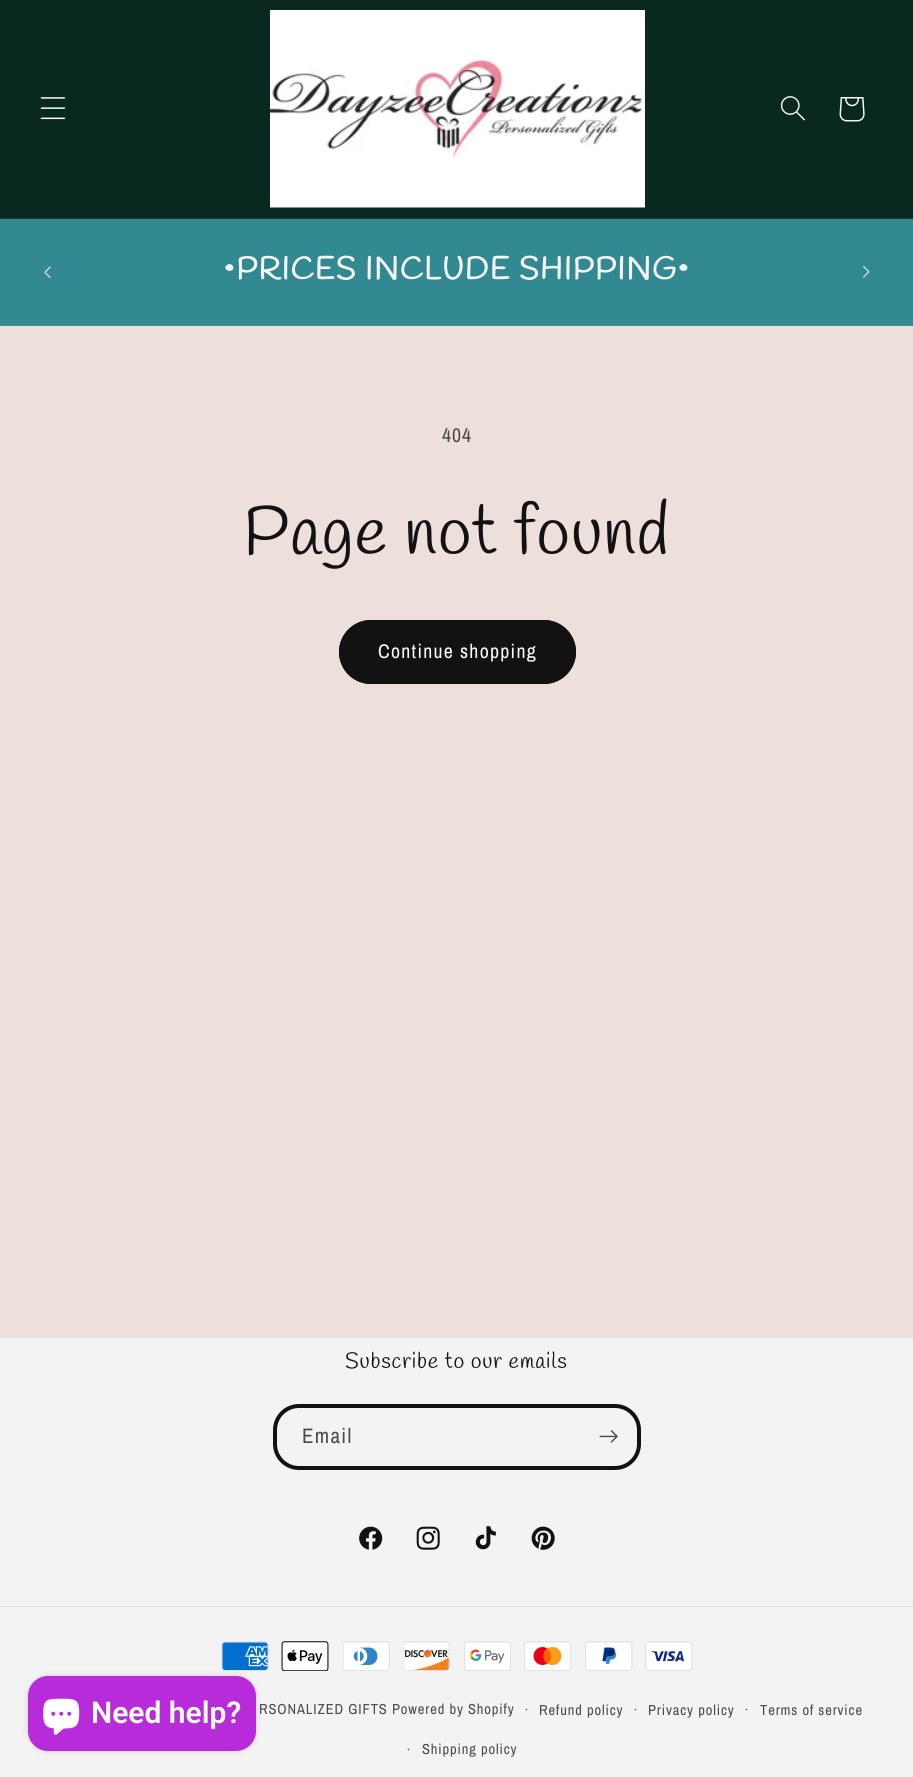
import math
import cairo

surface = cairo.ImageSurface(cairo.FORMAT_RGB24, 913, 1777)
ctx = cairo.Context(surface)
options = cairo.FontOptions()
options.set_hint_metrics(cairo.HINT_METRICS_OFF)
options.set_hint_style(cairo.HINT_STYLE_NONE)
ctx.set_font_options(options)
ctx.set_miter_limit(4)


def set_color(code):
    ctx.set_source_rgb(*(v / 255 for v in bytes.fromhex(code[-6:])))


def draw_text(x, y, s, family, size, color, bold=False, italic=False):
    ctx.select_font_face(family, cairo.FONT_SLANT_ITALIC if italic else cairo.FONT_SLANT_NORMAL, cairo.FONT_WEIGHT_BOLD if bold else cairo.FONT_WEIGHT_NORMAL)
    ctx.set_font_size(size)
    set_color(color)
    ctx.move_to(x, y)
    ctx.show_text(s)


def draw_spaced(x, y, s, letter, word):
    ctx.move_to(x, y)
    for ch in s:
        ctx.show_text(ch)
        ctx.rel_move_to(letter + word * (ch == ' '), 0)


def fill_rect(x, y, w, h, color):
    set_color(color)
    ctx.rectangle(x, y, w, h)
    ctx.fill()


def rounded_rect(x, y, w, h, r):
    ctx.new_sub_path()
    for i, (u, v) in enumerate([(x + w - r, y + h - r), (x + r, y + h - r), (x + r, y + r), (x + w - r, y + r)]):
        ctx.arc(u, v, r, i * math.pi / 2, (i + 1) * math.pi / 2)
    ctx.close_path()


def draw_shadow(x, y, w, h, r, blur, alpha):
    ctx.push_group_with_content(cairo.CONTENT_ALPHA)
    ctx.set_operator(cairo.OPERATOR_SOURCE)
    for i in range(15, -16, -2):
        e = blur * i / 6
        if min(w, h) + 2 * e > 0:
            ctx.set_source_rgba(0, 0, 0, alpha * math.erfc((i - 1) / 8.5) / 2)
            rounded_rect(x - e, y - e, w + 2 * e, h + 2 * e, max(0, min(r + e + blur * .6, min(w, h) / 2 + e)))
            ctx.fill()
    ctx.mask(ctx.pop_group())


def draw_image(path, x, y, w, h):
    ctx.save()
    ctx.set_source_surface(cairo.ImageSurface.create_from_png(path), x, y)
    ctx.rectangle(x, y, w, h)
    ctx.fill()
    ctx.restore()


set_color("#eddfda")
ctx.paint()
fill_rect(0, 0, 913, 218, "#082820")
fill_rect(0, 218, 913, 1, "#1c3932")
draw_image("assets/img1.png", 40, 97, 26, 23)
draw_image("assets/img2.png", 270, 10, 375, 198)
draw_image("assets/img3.png", 780, 96, 25, 25)
draw_image("assets/img4.png", 839, 97, 26, 25)
fill_rect(0, 219, 913, 106, "#328992")
fill_rect(0, 325, 913, 1, "#42929b")
draw_image("assets/img5.png", 44, 266, 7, 13)
ctx.select_font_face("Handlee", cairo.FONT_SLANT_NORMAL, cairo.FONT_WEIGHT_BOLD)
ctx.set_font_size(31.25)
set_color("#f5f5f5")
draw_spaced(223, 279, "•PRICES INCLUDE SHIPPING•", 1.3, 0)
draw_image("assets/img6.png", 863, 265, 7, 13)
ctx.select_font_face("Archivo Narrow")
ctx.set_font_size(19.75)
set_color("#494544")
draw_spaced(442, 442, "404", 1, 0)
ctx.select_font_face("Handlee")
ctx.set_font_size(68.75)
set_color("#121212")
draw_spaced(243, 554, "Page not found", 0.8, 0)
rounded_rect(339, 620, 237, 64, 32)
ctx.fill()
rounded_rect(340.5, 621.5, 234, 61, 30.5)
ctx.set_line_width(3)
ctx.stroke()
ctx.select_font_face("Archivo Narrow")
ctx.set_font_size(19.75)
set_color("#ffffff")
draw_spaced(378, 658, "Continue shopping", 1.3, 0)
fill_rect(0, 1338, 913, 439, "#f3f3f3")
draw_image("assets/img13.png", 221, 1641, 48, 30)
set_color("#000000")
draw_shadow(28, 1676, 228, 75, 20, 3, 0.15)
set_color("#b72bda")
rounded_rect(28, 1676, 228, 75, 20)
ctx.fill()
draw_image("assets/img7.png", 43, 1698, 37, 37)
draw_text(91, 1723, "Need help?", "Roboto SemiBold", 30, "#ffffff")
ctx.select_font_face("Handlee")
ctx.set_font_size(22)
set_color("#121212")
draw_spaced(345, 1368, "Subscribe to our emails", 0.8, 0)
rounded_rect(275, 1406, 364, 62, 24)
ctx.set_line_width(4)
ctx.stroke()
ctx.select_font_face("Archivo Narrow")
ctx.set_font_size(21)
set_color("#4a4a4a")
draw_spaced(302, 1443, "Email", 1.3, 0)
draw_image("assets/img8.png", 599, 1430, 19, 13)
draw_image("assets/img9.png", 359, 1526, 24, 24)
draw_image("assets/img10.png", 416, 1526, 24, 24)
draw_image("assets/img11.png", 475, 1526, 21, 24)
draw_image("assets/img12.png", 531, 1526, 24, 24)
fill_rect(0, 1606, 913, 1, "#e1e1e1")
draw_image("assets/img14.png", 281, 1641, 48, 30)
draw_image("assets/img15.png", 343, 1641, 47, 30)
draw_image("assets/img16.png", 403, 1641, 47, 30)
draw_image("assets/img17.png", 464, 1641, 47, 30)
draw_image("assets/img18.png", 524, 1641, 47, 30)
draw_image("assets/img19.png", 585, 1641, 48, 30)
draw_image("assets/img20.png", 645, 1641, 48, 30)
ctx.set_font_size(14.5)
set_color("#4a4a4a")
draw_spaced(259, 1714, "RSONALIZED GIFTS", 0.9, 0)
draw_spaced(392, 1714, "Powered by Shopify", 0.9, 0)
ctx.set_font_size(13)
draw_spaced(525, 1714, "·", 0.9, 0)
ctx.set_font_size(14.5)
draw_spaced(539, 1715, "Refund policy", 0.9, 0)
ctx.set_font_size(13)
draw_spaced(634, 1714, "·", 0.9, 0)
ctx.set_font_size(14.5)
draw_spaced(648, 1715, "Privacy policy", 0.9, 0)
ctx.set_font_size(13)
draw_spaced(745, 1714, "·", 0.9, 0)
ctx.set_font_size(14.5)
draw_spaced(760, 1715, "Terms of service", 0.9, 0)
ctx.set_font_size(13)
draw_spaced(407, 1754, "·", 0.9, 0)
ctx.set_font_size(14.5)
draw_spaced(422, 1754, "Shipping policy", 0.9, 0)
surface.write_to_png("output.png")
